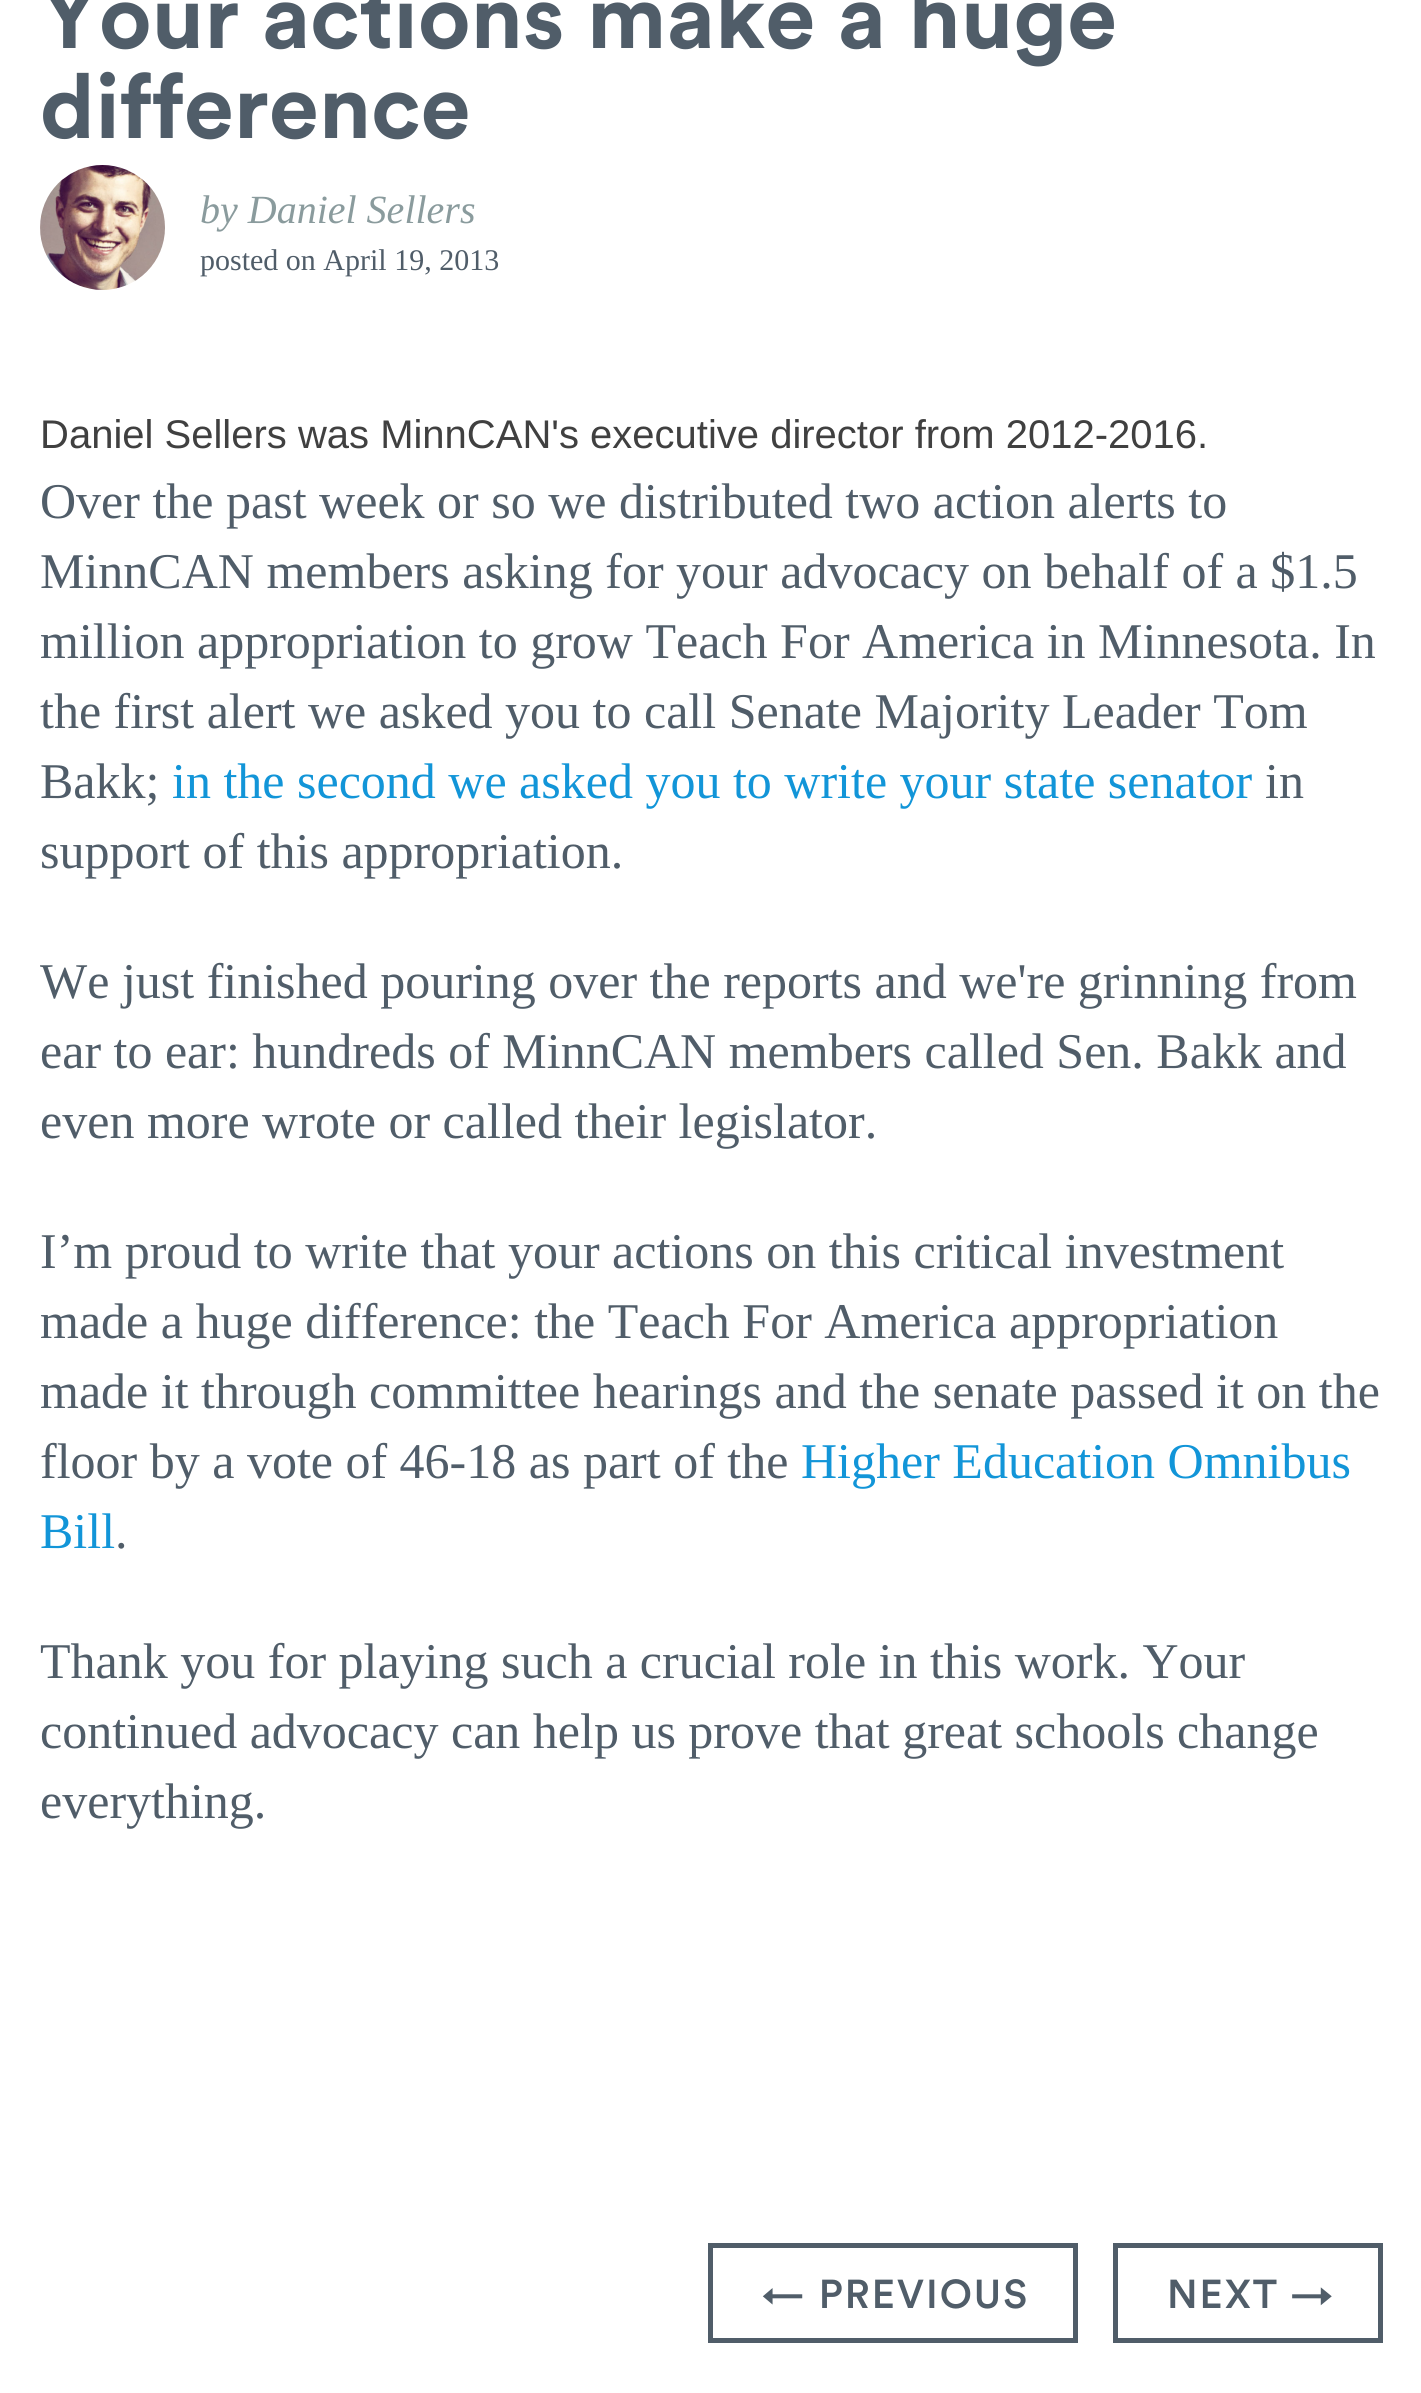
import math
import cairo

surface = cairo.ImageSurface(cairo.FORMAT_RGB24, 1421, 2393)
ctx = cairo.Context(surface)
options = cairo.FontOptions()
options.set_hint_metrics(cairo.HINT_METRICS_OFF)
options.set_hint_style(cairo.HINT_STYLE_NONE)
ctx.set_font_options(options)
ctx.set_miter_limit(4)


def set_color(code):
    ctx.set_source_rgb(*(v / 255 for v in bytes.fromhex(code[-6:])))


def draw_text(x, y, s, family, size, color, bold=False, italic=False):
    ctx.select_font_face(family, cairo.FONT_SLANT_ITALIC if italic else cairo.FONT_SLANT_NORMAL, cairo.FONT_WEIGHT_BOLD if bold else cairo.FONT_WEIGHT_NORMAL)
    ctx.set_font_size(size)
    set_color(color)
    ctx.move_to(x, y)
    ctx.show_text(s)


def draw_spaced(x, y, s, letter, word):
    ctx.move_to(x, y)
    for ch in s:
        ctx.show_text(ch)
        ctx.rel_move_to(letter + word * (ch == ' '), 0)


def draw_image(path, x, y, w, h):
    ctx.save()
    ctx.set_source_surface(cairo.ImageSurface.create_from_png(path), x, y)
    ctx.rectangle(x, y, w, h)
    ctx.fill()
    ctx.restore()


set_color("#ffffff")
ctx.paint()
draw_text(40, 48, "Your actions make a huge", "Circular", 90, "#505d69", bold=True)
draw_text(40, 138, "difference", "Circular", 90, "#505d69", bold=True)
draw_image("assets/img1.png", 40, 165, 125, 125)
draw_text(200, 223, "by Daniel Sellers", "Liberation Serif", 40, "#8a9b9d", italic=True)
draw_text(200, 270, "posted on April 19, 2013", "Liberation Serif", 30, "#505d69")
draw_text(40, 448, "Daniel Sellers was MinnCAN's executive director from 2012-2016.", "Liberation Sans", 40, "#404040")
draw_text(40, 518, "Over the past week or so we distributed two action alerts to", "Liberation Serif", 50, "#505d69")
draw_text(40, 588, "MinnCAN members asking for your advocacy on behalf of a $1.5", "Liberation Serif", 50, "#505d69")
draw_text(40, 658, "million appropriation to grow Teach For America in Minnesota. In", "Liberation Serif", 50, "#505d69")
draw_text(40, 728, "the first alert we asked you to call Senate Majority Leader Tom", "Liberation Serif", 50, "#505d69")
draw_text(40, 798, "Bakk;", "Liberation Serif", 50, "#505d69")
draw_text(172, 798, "in the second we asked you to write your state senator", "Liberation Serif", 50, "#1295d8")
draw_text(1265, 798, "in", "Liberation Serif", 50, "#505d69")
draw_text(40, 868, "support of this appropriation.", "Liberation Serif", 50, "#505d69")
draw_text(40, 998, "We just finished pouring over the reports and we're grinning from", "Liberation Serif", 50, "#505d69")
draw_text(40, 1068, "ear to ear: hundreds of MinnCAN members called Sen. Bakk and", "Liberation Serif", 50, "#505d69")
draw_text(40, 1138, "even more wrote or called their legislator.", "Liberation Serif", 50, "#505d69")
draw_text(40, 1268, "I’m proud to write that your actions on this critical investment", "Liberation Serif", 50, "#505d69")
draw_text(40, 1338, "made a huge difference: the Teach For America appropriation", "Liberation Serif", 50, "#505d69")
draw_text(40, 1408, "made it through committee hearings and the senate passed it on the", "Liberation Serif", 50, "#505d69")
draw_text(40, 1478, "floor by a vote of 46-18 as part of the", "Liberation Serif", 50, "#505d69")
draw_text(801, 1478, "Higher Education Omnibus", "Liberation Serif", 50, "#1295d8")
draw_text(40, 1548, "Bill", "Liberation Serif", 50, "#1295d8")
draw_text(115, 1548, ".", "Liberation Serif", 50, "#505d69")
draw_text(40, 1678, "Thank you for playing such a crucial role in this work. Your", "Liberation Serif", 50, "#505d69")
draw_text(40, 1748, "continued advocacy can help us prove that great schools change", "Liberation Serif", 50, "#505d69")
draw_text(40, 1818, "everything.", "Liberation Serif", 50, "#505d69")
ctx.rectangle(710.5, 2245.5, 365, 95)
ctx.set_line_width(5)
ctx.stroke()
ctx.select_font_face("Circular Medium")
ctx.set_font_size(40)
draw_spaced(763, 2308, "← PREVIOUS", 2, 0)
ctx.rectangle(1115.5, 2245.5, 265, 95)
ctx.stroke()
draw_spaced(1167, 2308, "NEXT →", 2, 0)
surface.write_to_png("output.png")
